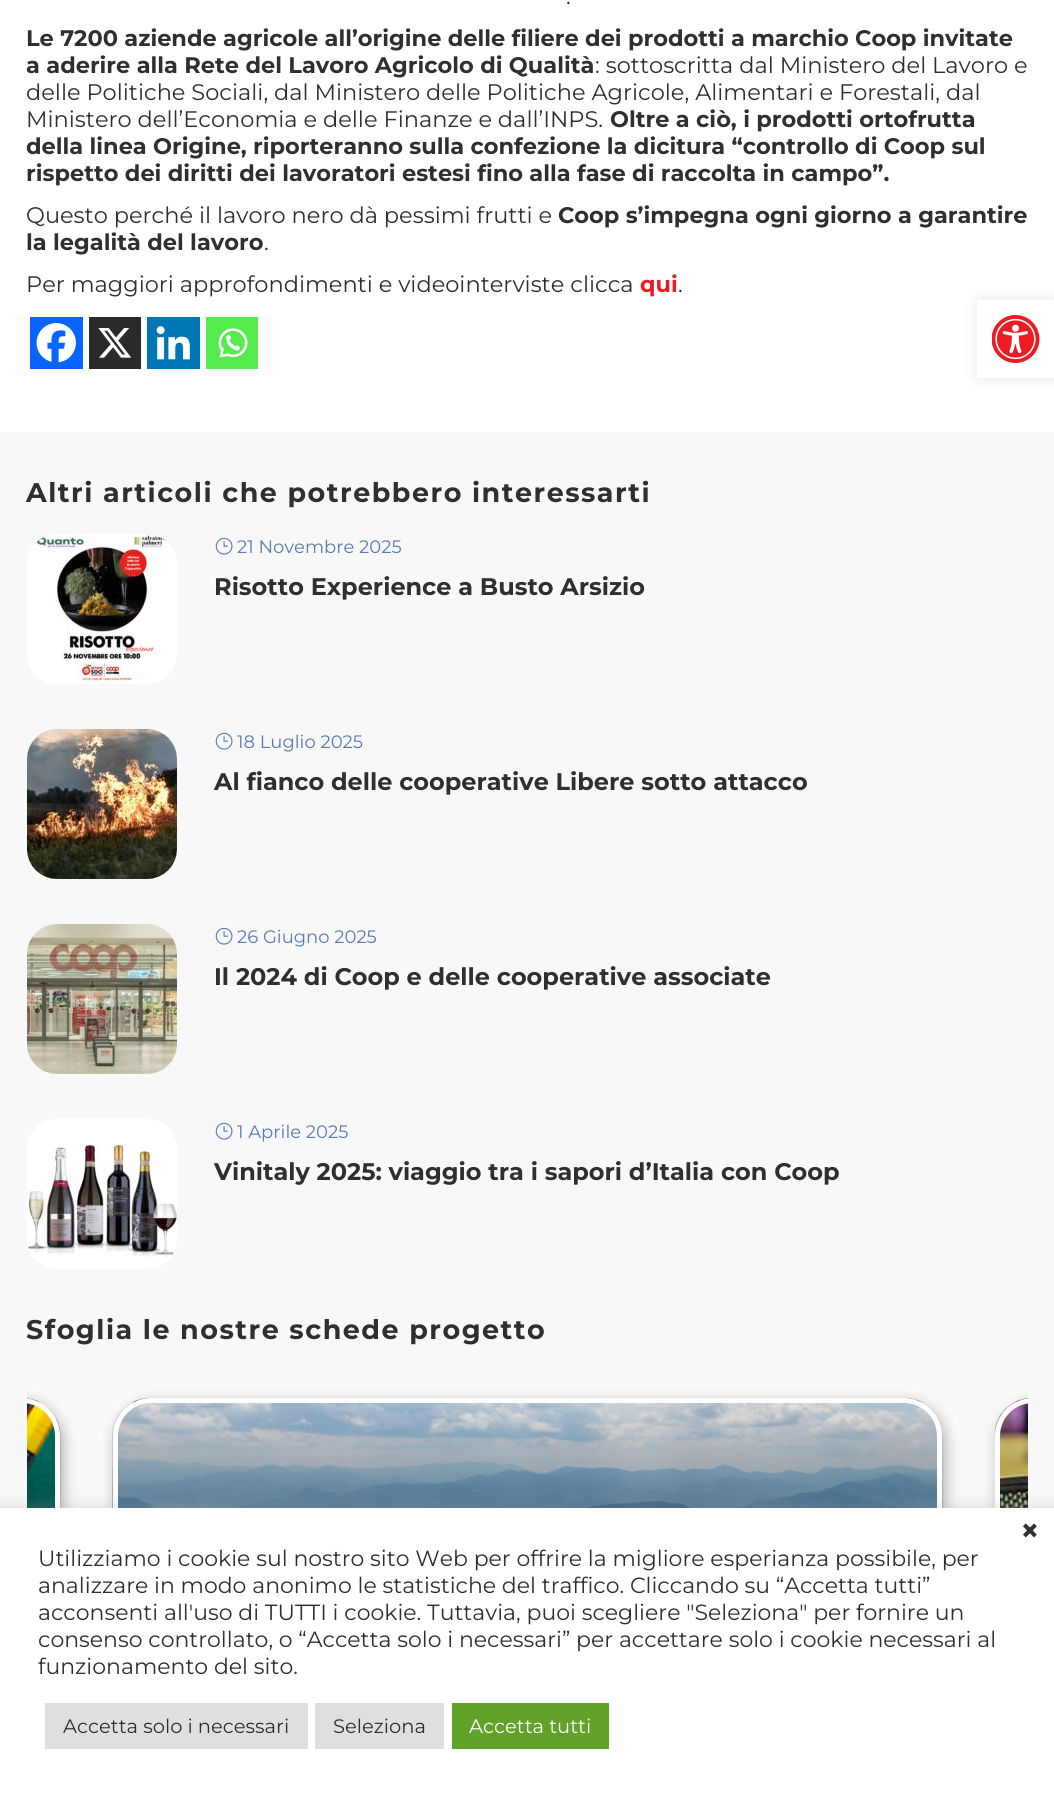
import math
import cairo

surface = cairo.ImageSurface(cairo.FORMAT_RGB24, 1054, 1793)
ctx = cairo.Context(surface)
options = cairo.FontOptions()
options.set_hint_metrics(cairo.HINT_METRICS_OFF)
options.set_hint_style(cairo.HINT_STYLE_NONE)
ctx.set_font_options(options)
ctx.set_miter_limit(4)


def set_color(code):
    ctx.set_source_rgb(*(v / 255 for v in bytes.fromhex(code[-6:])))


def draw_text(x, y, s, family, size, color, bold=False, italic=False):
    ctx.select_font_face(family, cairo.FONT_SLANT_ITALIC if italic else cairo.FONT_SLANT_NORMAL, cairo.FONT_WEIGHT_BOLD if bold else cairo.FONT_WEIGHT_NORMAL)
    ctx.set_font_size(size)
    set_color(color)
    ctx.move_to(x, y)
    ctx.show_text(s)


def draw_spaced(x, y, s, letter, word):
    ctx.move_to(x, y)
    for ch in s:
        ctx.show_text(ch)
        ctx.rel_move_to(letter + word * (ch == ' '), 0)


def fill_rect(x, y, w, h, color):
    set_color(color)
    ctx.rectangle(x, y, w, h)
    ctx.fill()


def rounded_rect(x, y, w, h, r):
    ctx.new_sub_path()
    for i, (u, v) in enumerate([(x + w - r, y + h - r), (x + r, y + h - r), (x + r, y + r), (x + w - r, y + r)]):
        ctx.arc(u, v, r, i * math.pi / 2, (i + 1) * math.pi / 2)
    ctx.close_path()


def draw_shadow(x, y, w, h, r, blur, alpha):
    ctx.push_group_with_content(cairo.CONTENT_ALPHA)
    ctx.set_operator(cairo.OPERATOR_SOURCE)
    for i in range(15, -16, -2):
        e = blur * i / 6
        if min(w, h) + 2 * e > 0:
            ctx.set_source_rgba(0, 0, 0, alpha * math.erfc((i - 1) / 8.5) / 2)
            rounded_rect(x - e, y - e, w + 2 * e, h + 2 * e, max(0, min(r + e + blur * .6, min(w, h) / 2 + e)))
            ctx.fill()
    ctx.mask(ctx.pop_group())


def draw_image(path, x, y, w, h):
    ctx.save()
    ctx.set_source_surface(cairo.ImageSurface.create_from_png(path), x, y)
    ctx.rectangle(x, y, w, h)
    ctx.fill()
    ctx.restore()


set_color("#ffffff")
ctx.paint()
draw_text(566, 4, ".", "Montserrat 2 Thin", 22.5, "#2f2f2f")
draw_text(26, 46, "Le 7200 aziende agricole all’origine delle filiere dei prodotti a marchio Coop invitate", "Montserrat Thin", 22.5, "#2f2f2f")
draw_text(26, 73, "a aderire alla Rete del Lavoro Agricolo di Qualità", "Montserrat Thin", 22.5, "#2f2f2f")
draw_text(595, 73, ": sottoscritta dal Ministero del Lavoro e", "Montserrat 2 Thin", 22.5, "#2f2f2f")
draw_text(26, 100, "delle Politiche Sociali, dal Ministero delle Politiche Agricole, Alimentari e Forestali, dal", "Montserrat 2 Thin", 22.5, "#2f2f2f")
draw_text(26, 127, "Ministero dell’Economia e delle Finanze e dall’INPS.", "Montserrat 2 Thin", 22.5, "#2f2f2f")
draw_text(610, 127, "Oltre a ciò, i prodotti ortofrutta", "Montserrat Thin", 22.5, "#2f2f2f")
draw_text(26, 154, "della linea Origine, riporteranno sulla confezione la dicitura “controllo di Coop sul", "Montserrat Thin", 22.5, "#2f2f2f")
draw_text(26, 181, "rispetto dei diritti dei lavoratori estesi fino alla fase di raccolta in campo”.", "Montserrat Thin", 22.5, "#2f2f2f")
draw_text(26, 223, "Questo perché il lavoro nero dà pessimi frutti e", "Montserrat 2 Thin", 22.5, "#2f2f2f")
draw_text(558, 223, "Coop s’impegna ogni giorno a garantire", "Montserrat Thin", 22.5, "#2f2f2f")
draw_text(26, 250, "la legalità del lavoro", "Montserrat Thin", 22.5, "#2f2f2f")
draw_text(264, 250, ".", "Montserrat 2 Thin", 22.5, "#2f2f2f")
draw_text(26, 292, "Per maggiori approfondimenti e videointerviste clicca", "Montserrat 2 Thin", 22.5, "#2f2f2f")
draw_text(640, 292, "qui", "Montserrat Thin", 22.5, "#ed1c24")
draw_text(678, 292, ".", "Montserrat 2 Thin", 22.5, "#2f2f2f")
fill_rect(30, 317, 53, 52, "#0765fe")
draw_image("assets/img1.png", 36, 323, 40, 40)
fill_rect(89, 317, 52, 52, "#2a2a2a")
draw_image("assets/img2.png", 98, 328, 33, 30)
fill_rect(147, 317, 53, 52, "#0077b5")
draw_image("assets/img3.png", 156, 326, 34, 34)
fill_rect(206, 317, 52, 52, "#55eb4c")
draw_image("assets/img4.png", 218, 328, 30, 30)
fill_rect(0, 432, 1054, 1076, "#f8f8f8")
ctx.select_font_face("Montserrat Thin")
ctx.set_font_size(27)
set_color("#2f2f2f")
draw_spaced(26, 502, "Altri articoli che potrebbero interessarti", 1.5, 0)
draw_image("assets/img5.png", 27, 534, 150, 150)
draw_image("assets/img6.png", 215, 537, 18, 18)
draw_text(237, 553, "21 Novembre 2025", "Montserrat 2 Thin", 18, "#597bb2")
draw_text(214, 595, "Risotto Experience a Busto Arsizio", "Montserrat Thin", 24, "#2f2f2f")
draw_image("assets/img7.png", 27, 729, 150, 150)
draw_image("assets/img6.png", 215, 732, 18, 18)
draw_text(237, 748, "18 Luglio 2025", "Montserrat 2 Thin", 18, "#597bb2")
draw_text(214, 790, "Al fianco delle cooperative Libere sotto attacco", "Montserrat Thin", 24, "#2f2f2f")
draw_image("assets/img8.png", 27, 924, 150, 150)
draw_image("assets/img6.png", 215, 927, 18, 18)
draw_text(237, 943, "26 Giugno 2025", "Montserrat 2 Thin", 18, "#597bb2")
draw_text(214, 985, "Il 2024 di Coop e delle cooperative associate", "Montserrat Thin", 24, "#2f2f2f")
draw_image("assets/img9.png", 27, 1119, 150, 150)
draw_image("assets/img6.png", 215, 1122, 18, 18)
draw_text(237, 1138, "1 Aprile 2025", "Montserrat 2 Thin", 18, "#597bb2")
draw_text(214, 1180, "Vinitaly 2025: viaggio tra i sapori d’Italia con Coop", "Montserrat Thin", 24, "#2f2f2f")
ctx.set_font_size(27)
draw_spaced(26, 1339, "Sfoglia le nostre schede progetto", 1.5, 0)
ctx.save()
ctx.rectangle(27, 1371, 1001, 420)
ctx.clip()
set_color("#000000")
draw_shadow(-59, 1403, 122, 360, 38, 7, 0.31)
ctx.restore()
draw_image("assets/img10.png", 27, 1398, 34, 110)
ctx.save()
ctx.rectangle(27, 1371, 1001, 420)
ctx.clip()
rounded_rect(-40.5, 1400.5, 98, 355, 35.5)
set_color("#ffffff")
ctx.set_line_width(5)
ctx.stroke()
ctx.restore()
set_color("#000000")
draw_shadow(116, 1403, 829, 360, 38, 7, 0.31)
draw_image("assets/img11.png", 112, 1398, 831, 110)
rounded_rect(115.5, 1400.5, 824, 355, 35.5)
set_color("#ffffff")
ctx.set_line_width(5)
ctx.stroke()
ctx.save()
ctx.rectangle(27, 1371, 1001, 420)
ctx.clip()
set_color("#000000")
draw_shadow(998, 1403, 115, 360, 38, 7, 0.31)
ctx.restore()
draw_image("assets/img12.png", 995, 1398, 33, 110)
ctx.save()
ctx.rectangle(27, 1371, 1001, 420)
ctx.clip()
rounded_rect(997.5, 1400.5, 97, 355, 35.5)
ctx.stroke()
ctx.restore()
ctx.save()
ctx.set_fill_rule(cairo.FILL_RULE_EVEN_ODD)
ctx.new_path()
ctx.move_to(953, 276)
ctx.line_to(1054, 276)
ctx.line_to(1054, 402)
ctx.line_to(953, 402)
ctx.close_path()
ctx.move_to(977, 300)
ctx.line_to(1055, 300)
ctx.line_to(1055, 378)
ctx.line_to(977, 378)
ctx.close_path()
ctx.clip()
set_color("#000000")
draw_shadow(977, 300, 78, 78, 0, 7.5, 0.1)
ctx.restore()
draw_image("assets/img13.png", 992, 315, 48, 48)
set_color("#acabab")
draw_shadow(0, 1506, 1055, 287, 0, 7.5, 0.3)
fill_rect(0, 1508, 1054, 285, "#ffffff")
draw_text(1020, 1542, "×", "Montserrat Thin", 33, "#2f2f2f")
draw_text(38, 1566, "Utilizziamo i cookie sul nostro sito Web per offrire la migliore esperianza possibile, per", "Montserrat 2 Thin", 22, "#2f2f2f")
draw_text(38, 1593, "analizzare in modo anonimo le statistiche del traffico. Cliccando su “Accetta tutti”", "Montserrat 2 Thin", 22, "#2f2f2f")
draw_text(38, 1620, "acconsenti all'uso di TUTTI i cookie. Tuttavia, puoi scegliere \"Seleziona\" per fornire un", "Montserrat 2 Thin", 22, "#2f2f2f")
draw_text(38, 1647, "consenso controllato, o “Accetta solo i necessari” per accettare solo i cookie necessari al", "Montserrat 2 Thin", 22, "#2f2f2f")
draw_text(38, 1674, "funzionamento del sito.", "Montserrat 2 Thin", 22, "#2f2f2f")
fill_rect(45, 1703, 263, 46, "#dedfe0")
draw_text(63, 1733, "Accetta solo i necessari", "Montserrat 2 Thin", 19.5, "#2f2f2f")
fill_rect(315, 1703, 129, 46, "#dedfe0")
draw_text(333, 1733, "Seleziona", "Montserrat 2 Thin", 19.5, "#2f2f2f")
fill_rect(452, 1703, 157, 46, "#61a229")
draw_text(469, 1733, "Accetta tutti", "Montserrat 2 Thin", 19.5, "#ffffff")
surface.write_to_png("output.png")
